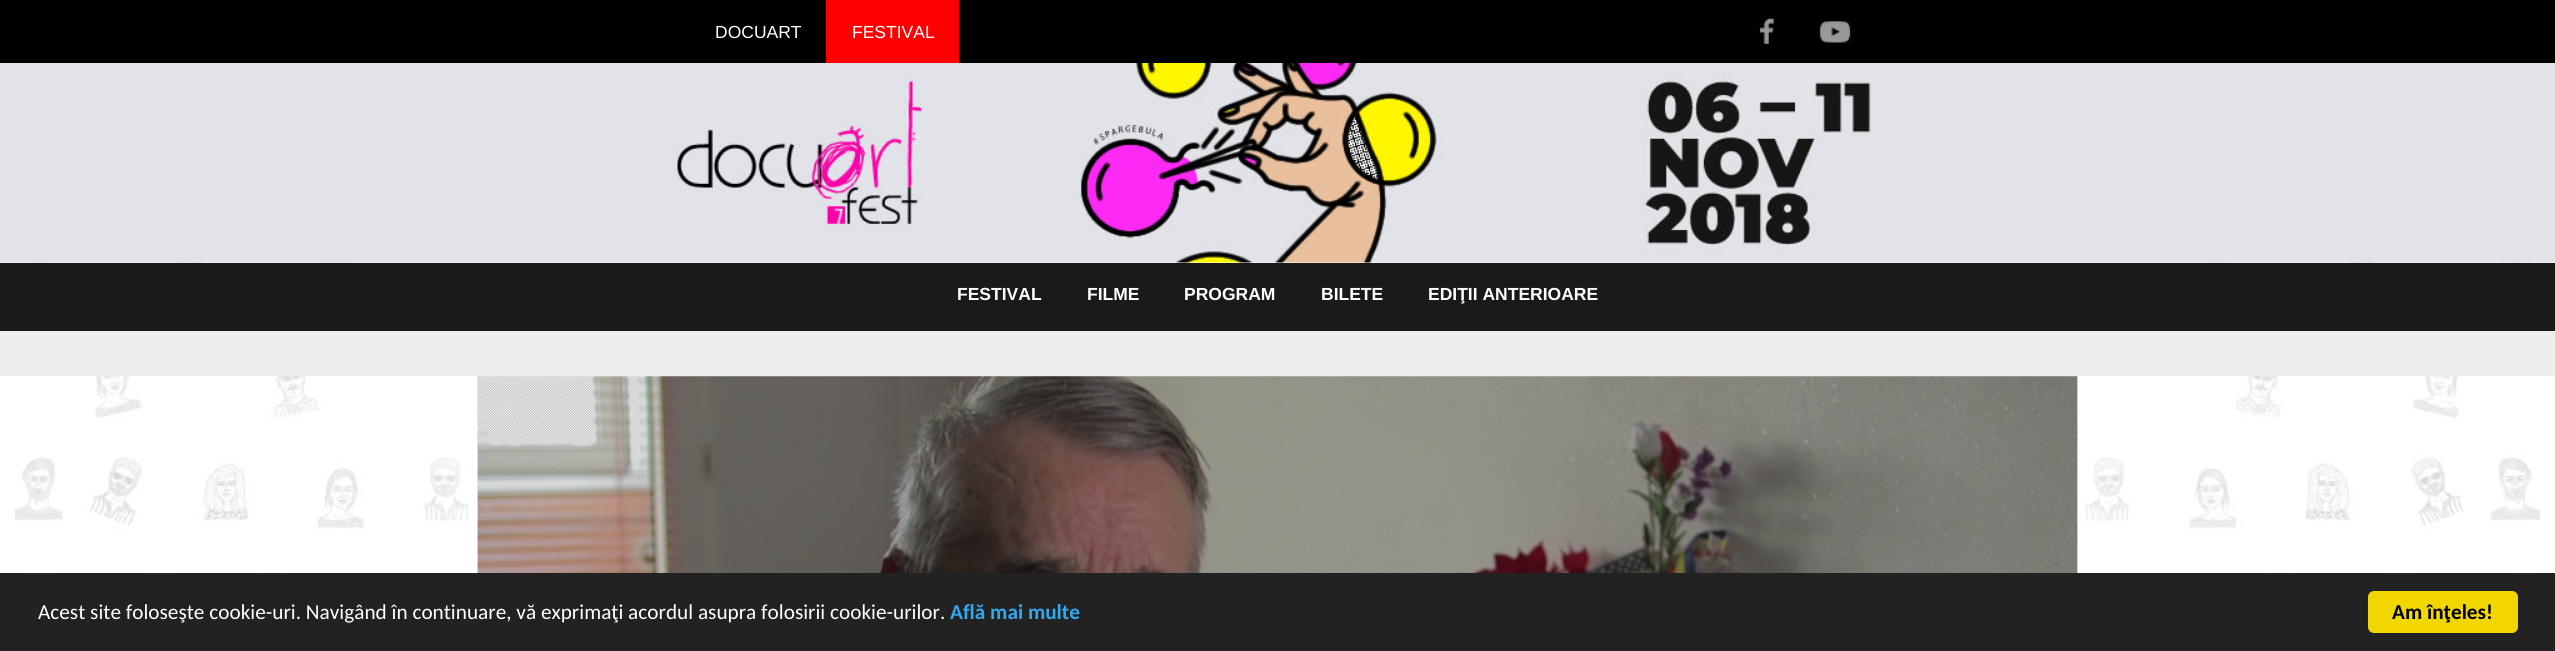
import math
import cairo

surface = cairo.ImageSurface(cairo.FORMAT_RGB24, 2555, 651)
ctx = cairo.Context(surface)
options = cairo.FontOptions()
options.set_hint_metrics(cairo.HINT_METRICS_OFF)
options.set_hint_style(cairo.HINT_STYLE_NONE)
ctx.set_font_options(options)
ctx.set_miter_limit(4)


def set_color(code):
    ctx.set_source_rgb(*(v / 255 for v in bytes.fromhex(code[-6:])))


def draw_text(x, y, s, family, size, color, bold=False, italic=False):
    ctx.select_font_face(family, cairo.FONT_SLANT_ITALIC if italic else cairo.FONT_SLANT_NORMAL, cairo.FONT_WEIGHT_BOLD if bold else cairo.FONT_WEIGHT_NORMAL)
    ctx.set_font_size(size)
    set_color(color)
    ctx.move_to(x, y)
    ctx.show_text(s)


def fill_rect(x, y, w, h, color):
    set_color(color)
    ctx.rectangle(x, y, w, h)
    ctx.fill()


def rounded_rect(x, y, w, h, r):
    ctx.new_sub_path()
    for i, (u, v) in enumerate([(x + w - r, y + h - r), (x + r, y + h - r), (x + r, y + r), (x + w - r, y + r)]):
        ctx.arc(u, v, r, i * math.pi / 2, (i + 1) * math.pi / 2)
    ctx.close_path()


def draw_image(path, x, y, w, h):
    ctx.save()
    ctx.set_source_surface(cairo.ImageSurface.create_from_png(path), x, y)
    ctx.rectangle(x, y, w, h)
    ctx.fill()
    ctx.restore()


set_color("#ffffff")
ctx.paint()
draw_image("assets/img1.png", 15, 262, 2525, 311)
fill_rect(0, 0, 2555, 63, "#000000")
draw_text(715, 38, "DOCUART", "Liberation Sans", 17.5, "#ffffff")
fill_rect(826, 0, 133, 63, "#ff0000")
draw_text(852, 38, "FESTIVAL", "Liberation Sans", 17.5, "#ffffff")
draw_image("assets/img2.png", 1759, 18, 15, 26)
draw_image("assets/img3.png", 1819, 21, 32, 22)
draw_image("assets/img4.png", 0, 63, 2555, 200)
fill_rect(0, 263, 2555, 68, "#1a1a1a")
draw_text(957, 300, "FESTIVAL", "Liberation Sans", 17.5, "#ffffff", bold=True)
draw_text(1087, 300, "FILME", "Liberation Sans", 17.5, "#ffffff", bold=True)
draw_text(1184, 300, "PROGRAM", "Liberation Sans", 17.5, "#ffffff", bold=True)
draw_text(1321, 300, "BILETE", "Liberation Sans", 17.5, "#ffffff", bold=True)
draw_text(1428, 300, "EDIŢII ANTERIOARE", "Liberation Sans", 17.5, "#ffffff", bold=True)
fill_rect(0, 331, 2555, 45, "#eeeeee")
draw_image("assets/img5.png", 477, 376, 1601, 197)
draw_image("assets/img6.png", 477, 376, 1601, 197)
draw_image("assets/img7.png", 477, 376, 1601, 197)
fill_rect(0, 573, 2555, 78, "#222222")
draw_text(38, 619, "Acest site foloseşte cookie-uri. Navigând în continuare, vă exprimaţi acordul asupra folosirii cookie-urilor.", "Carlito", 21.25, "#ffffff")
draw_text(950, 619, "Află mai multe", "Carlito", 21.25, "#31a8f0", bold=True)
set_color("#f1d600")
rounded_rect(2368, 591, 150, 42, 6)
ctx.fill()
draw_text(2392, 619, "Am înţeles!", "Carlito", 21.25, "#000000", bold=True)
surface.write_to_png("output.png")
